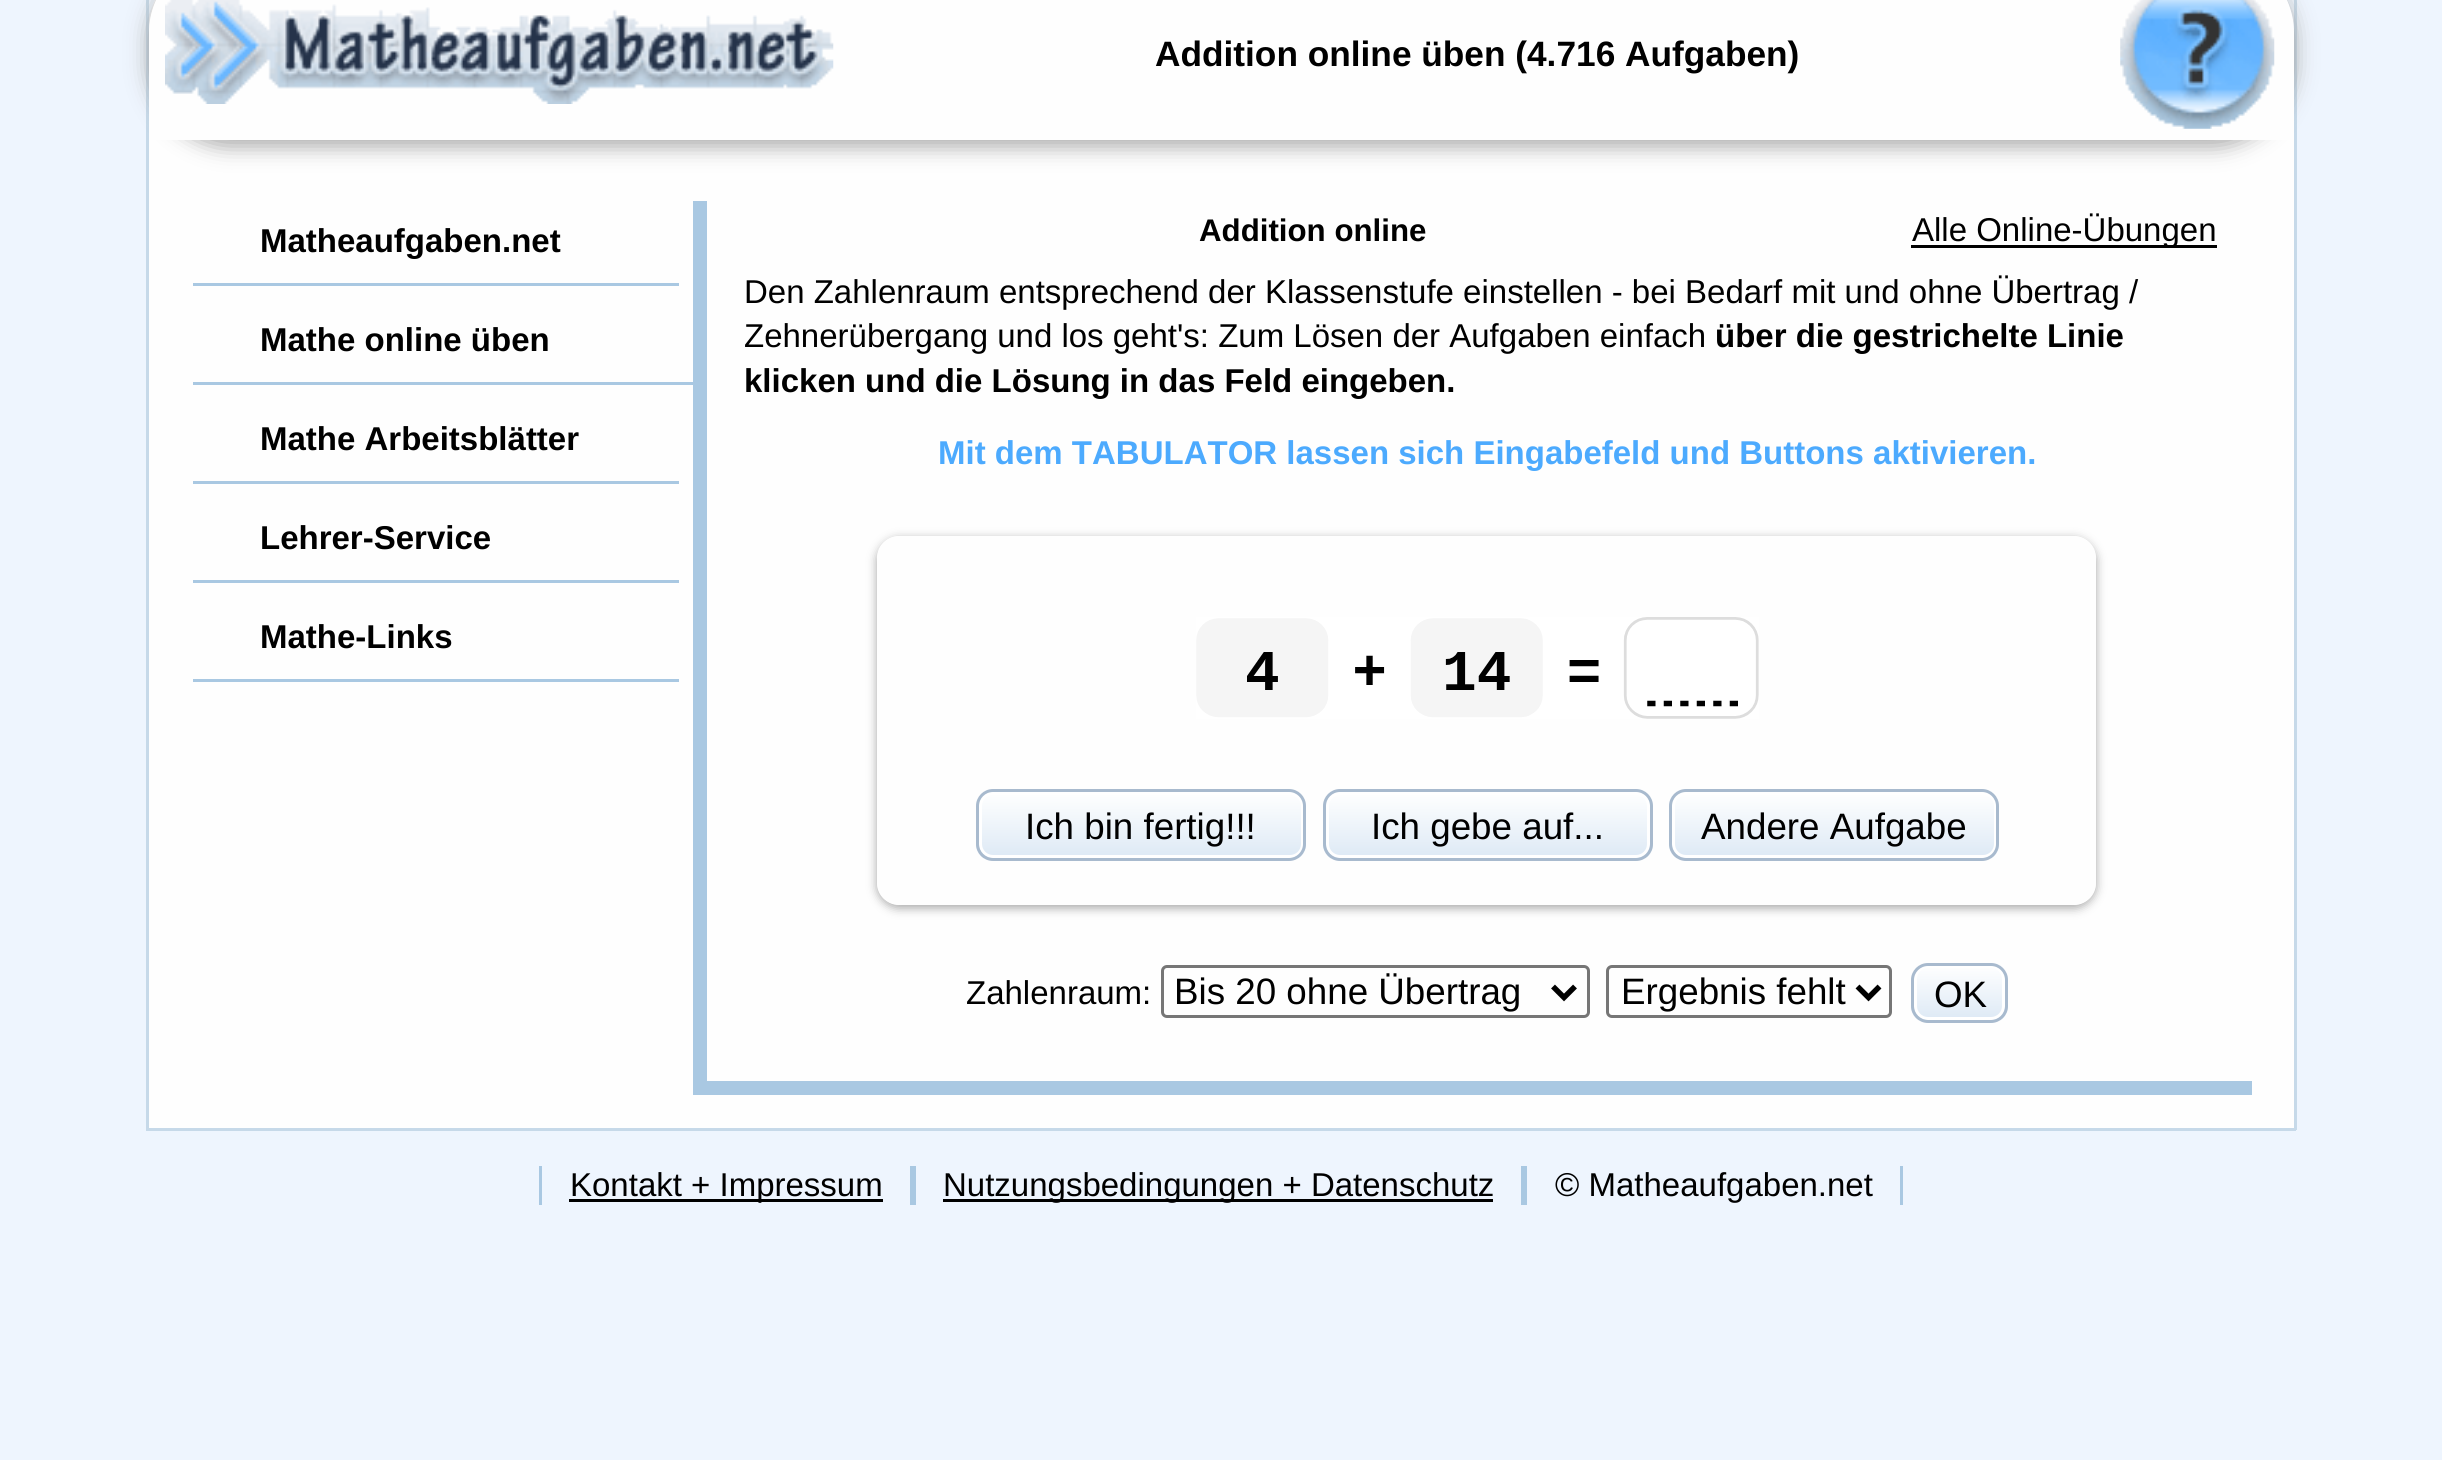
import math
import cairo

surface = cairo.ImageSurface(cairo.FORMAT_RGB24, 2442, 1460)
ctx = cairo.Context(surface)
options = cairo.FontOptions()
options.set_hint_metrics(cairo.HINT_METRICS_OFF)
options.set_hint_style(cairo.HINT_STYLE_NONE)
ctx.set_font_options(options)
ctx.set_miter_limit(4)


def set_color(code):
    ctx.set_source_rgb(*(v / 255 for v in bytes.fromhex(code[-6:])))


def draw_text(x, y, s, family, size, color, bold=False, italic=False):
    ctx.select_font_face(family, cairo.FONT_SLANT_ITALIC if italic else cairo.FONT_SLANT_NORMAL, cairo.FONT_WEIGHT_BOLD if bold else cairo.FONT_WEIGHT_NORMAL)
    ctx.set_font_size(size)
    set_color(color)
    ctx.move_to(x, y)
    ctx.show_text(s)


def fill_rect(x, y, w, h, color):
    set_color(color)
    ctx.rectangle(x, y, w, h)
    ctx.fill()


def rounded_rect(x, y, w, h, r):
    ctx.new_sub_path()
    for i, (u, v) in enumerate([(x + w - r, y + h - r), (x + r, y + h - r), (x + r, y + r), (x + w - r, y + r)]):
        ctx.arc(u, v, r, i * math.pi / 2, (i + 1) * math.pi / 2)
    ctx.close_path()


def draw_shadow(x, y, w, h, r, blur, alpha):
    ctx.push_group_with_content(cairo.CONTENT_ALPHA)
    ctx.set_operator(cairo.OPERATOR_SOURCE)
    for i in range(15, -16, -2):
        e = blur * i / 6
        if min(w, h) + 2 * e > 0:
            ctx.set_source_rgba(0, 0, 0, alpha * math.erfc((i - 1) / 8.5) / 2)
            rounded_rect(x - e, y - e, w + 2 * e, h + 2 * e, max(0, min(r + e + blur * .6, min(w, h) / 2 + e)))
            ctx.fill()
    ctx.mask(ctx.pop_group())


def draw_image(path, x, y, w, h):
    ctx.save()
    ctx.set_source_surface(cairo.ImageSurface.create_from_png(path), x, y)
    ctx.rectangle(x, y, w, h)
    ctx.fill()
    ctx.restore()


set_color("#eef5fe")
ctx.paint()
set_color("#fefefe")
ctx.new_path()
ctx.move_to(226, -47)
ctx.line_to(2216, -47)
ctx.curve_to(2259, -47, 2294, -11, 2294, 33)
ctx.line_to(2294, 1128)
ctx.line_to(148, 1128)
ctx.line_to(148, 33)
ctx.curve_to(148, -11, 183, -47, 226, -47)
ctx.close_path()
ctx.fill()
fill_rect(2294, 0, 3, 1130, "#c6d9e9")
fill_rect(146, 1128, 2150, 3, "#c6d9e9")
fill_rect(146, 0, 3, 1130, "#c6d9e9")
ctx.save()
ctx.set_fill_rule(cairo.FILL_RULE_EVEN_ODD)
ctx.new_path()
ctx.move_to(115, 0)
ctx.line_to(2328, 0)
ctx.line_to(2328, 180)
ctx.line_to(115, 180)
ctx.close_path()
ctx.move_to(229, -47)
ctx.line_to(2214, -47)
ctx.curve_to(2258, -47, 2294, -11, 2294, 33)
ctx.line_to(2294, 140)
ctx.line_to(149, 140)
ctx.line_to(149, 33)
ctx.curve_to(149, -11, 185, -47, 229, -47)
ctx.close_path()
ctx.clip()
set_color("#a6a6a6")
draw_shadow(149, -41, 2145, 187, 80, 11, 1)
ctx.restore()
draw_image("assets/img1.png", 165, 0, 669, 104)
draw_text(1155, 66, "Addition online üben (4.716 Aufgaben)", "Liberation Sans", 35.25, "#000000", bold=True)
draw_image("assets/img2.png", 2120, 0, 155, 129)
fill_rect(193, 283, 486, 3, "#a9c8e2")
draw_text(260, 252, "Matheaufgaben.net", "Liberation Sans", 33, "#000000", bold=True)
fill_rect(193, 382, 500, 3, "#a9c8e2")
draw_text(260, 351, "Mathe online üben", "Liberation Sans", 33, "#000000", bold=True)
fill_rect(193, 481, 486, 3, "#a9c8e2")
draw_text(260, 450, "Mathe Arbeitsblätter", "Liberation Sans", 33, "#000000", bold=True)
fill_rect(193, 580, 486, 3, "#a9c8e2")
draw_text(260, 549, "Lehrer-Service", "Liberation Sans", 33, "#000000", bold=True)
fill_rect(193, 679, 486, 3, "#a9c8e2")
draw_text(260, 648, "Mathe-Links", "Liberation Sans", 33, "#000000", bold=True)
fill_rect(707, 1081, 1545, 14, "#a9c8e2")
fill_rect(693, 201, 14, 894, "#a9c8e2")
draw_text(1199, 241, "Addition online", "Liberation Sans", 31.25, "#000000", bold=True)
fill_rect(1911, 245, 306, 3, "#000000")
draw_text(1912, 241, "Alle Online-Übungen", "Liberation Sans", 33, "#000000")
draw_text(744, 303, "Den Zahlenraum entsprechend der Klassenstufe einstellen - bei Bedarf mit und ohne Übertrag /", "Liberation Sans", 33, "#000000")
draw_text(744, 347, "Zehnerübergang und los geht's: Zum Lösen der Aufgaben einfach", "Liberation Sans", 33, "#000000")
draw_text(1715, 347, "über die gestrichelte Linie", "Liberation Sans", 33, "#000000", bold=True)
draw_text(744, 392, "klicken und die Lösung in das Feld eingeben.", "Liberation Sans", 33, "#000000", bold=True)
draw_text(938, 464, "Mit dem TABULATOR lassen sich Eingabefeld und Buttons aktivieren.", "Liberation Sans", 33, "#4caafe", bold=True)
ctx.save()
ctx.set_fill_rule(cairo.FILL_RULE_EVEN_ODD)
ctx.new_path()
ctx.move_to(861, 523)
ctx.line_to(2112, 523)
ctx.line_to(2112, 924)
ctx.line_to(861, 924)
ctx.close_path()
ctx.move_to(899, 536)
ctx.line_to(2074, 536)
ctx.curve_to(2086, 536, 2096, 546, 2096, 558)
ctx.line_to(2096, 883)
ctx.curve_to(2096, 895, 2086, 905, 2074, 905)
ctx.line_to(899, 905)
ctx.curve_to(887, 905, 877, 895, 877, 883)
ctx.line_to(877, 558)
ctx.curve_to(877, 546, 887, 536, 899, 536)
ctx.close_path()
ctx.clip()
set_color("#a6a6a6")
draw_shadow(877, 539, 1219, 369, 22, 5, 1)
ctx.restore()
draw_image("assets/img3.png", 1196, 617, 563, 102)
ctx.save()
rounded_rect(976, 789, 330, 72, 17)
ctx.clip()
gradient = cairo.LinearGradient(1141, 792, 1141, 858)
gradient.add_color_stop_rgba(0, 1, 1, 1, 1)
gradient.add_color_stop_rgba(1, 0.867, 0.914, 0.961, 1)
ctx.set_source(gradient)
ctx.rectangle(976, 792, 330, 66)
ctx.fill()
ctx.restore()
rounded_rect(980.5, 793.5, 322, 63, 12.5)
set_color("#ffffff")
ctx.set_line_width(3)
ctx.stroke()
rounded_rect(977.5, 790.5, 327, 69, 15.5)
set_color("#a8bace")
ctx.stroke()
draw_text(1025, 839, "Ich bin fertig!!!", "Liberation Sans", 36.75, "#000000")
ctx.save()
rounded_rect(1323, 789, 330, 72, 17)
ctx.clip()
gradient = cairo.LinearGradient(1488, 792, 1488, 858)
gradient.add_color_stop_rgba(0, 1, 1, 1, 1)
gradient.add_color_stop_rgba(1, 0.867, 0.914, 0.961, 1)
ctx.set_source(gradient)
ctx.rectangle(1323, 792, 330, 66)
ctx.fill()
ctx.restore()
rounded_rect(1327.5, 793.5, 321, 63, 12.5)
set_color("#ffffff")
ctx.stroke()
rounded_rect(1324.5, 790.5, 327, 69, 15.5)
set_color("#a8bace")
ctx.stroke()
draw_text(1371, 839, "Ich gebe auf...", "Liberation Sans", 36.75, "#000000")
ctx.save()
rounded_rect(1669, 789, 330, 72, 17)
ctx.clip()
gradient = cairo.LinearGradient(1834, 792, 1834, 858)
gradient.add_color_stop_rgba(0, 1, 1, 1, 1)
gradient.add_color_stop_rgba(1, 0.867, 0.914, 0.961, 1)
ctx.set_source(gradient)
ctx.rectangle(1669, 792, 330, 66)
ctx.fill()
ctx.restore()
rounded_rect(1673.5, 793.5, 322, 63, 12.5)
set_color("#ffffff")
ctx.stroke()
rounded_rect(1670.5, 790.5, 327, 69, 15.5)
set_color("#a8bace")
ctx.stroke()
draw_text(1701, 839, "Andere Aufgabe", "Liberation Sans", 36.75, "#000000")
draw_text(966, 1004, "Zahlenraum:", "Liberation Sans", 33, "#000000")
rounded_rect(1162.5, 966.5, 426, 50, 4.5)
set_color("#767676")
ctx.stroke()
ctx.new_path()
ctx.move_to(1553, 986.5)
ctx.line_to(1564, 997.5)
ctx.line_to(1575, 986.5)
set_color("#000000")
ctx.set_line_width(5.5)
ctx.stroke()
draw_text(1174, 1004, "Bis 20 ohne Übertrag", "Liberation Sans", 36.75, "#000000")
rounded_rect(1607.5, 966.5, 283, 50, 4.5)
set_color("#767676")
ctx.set_line_width(3)
ctx.stroke()
ctx.new_path()
ctx.move_to(1857.5, 986.5)
ctx.line_to(1868.5, 997.5)
ctx.line_to(1879.5, 986.5)
set_color("#000000")
ctx.set_line_width(5.5)
ctx.stroke()
draw_text(1621, 1004, "Ergebnis fehlt", "Liberation Sans", 36.75, "#000000")
ctx.save()
rounded_rect(1911, 963, 97, 60, 17)
ctx.clip()
gradient = cairo.LinearGradient(1959, 965, 1959, 1020)
gradient.add_color_stop_rgba(0, 1, 1, 1, 1)
gradient.add_color_stop_rgba(1, 0.867, 0.914, 0.961, 1)
ctx.set_source(gradient)
ctx.rectangle(1911, 965, 97, 55)
ctx.fill()
ctx.restore()
rounded_rect(1915.5, 966.5, 88, 52, 12.5)
set_color("#ffffff")
ctx.set_line_width(3)
ctx.stroke()
rounded_rect(1912.5, 964.5, 94, 57, 15.5)
set_color("#a8bace")
ctx.stroke()
draw_text(1934, 1007, "OK", "Liberation Sans", 36.75, "#000000")
fill_rect(910, 1166, 6, 39, "#a9c8e2")
fill_rect(539, 1166, 3, 39, "#a9c8e2")
fill_rect(569, 1199, 314, 3, "#000000")
draw_text(570, 1196, "Kontakt + Impressum", "Liberation Sans", 33, "#000000")
fill_rect(1521, 1166, 6, 39, "#a9c8e2")
fill_rect(943, 1199, 550, 3, "#000000")
draw_text(943, 1196, "Nutzungsbedingungen + Datenschutz", "Liberation Sans", 33, "#000000")
fill_rect(1900, 1166, 3, 39, "#a9c8e2")
draw_text(1555, 1196, "© Matheaufgaben.net", "Liberation Sans", 33, "#000000")
surface.write_to_png("output.png")
